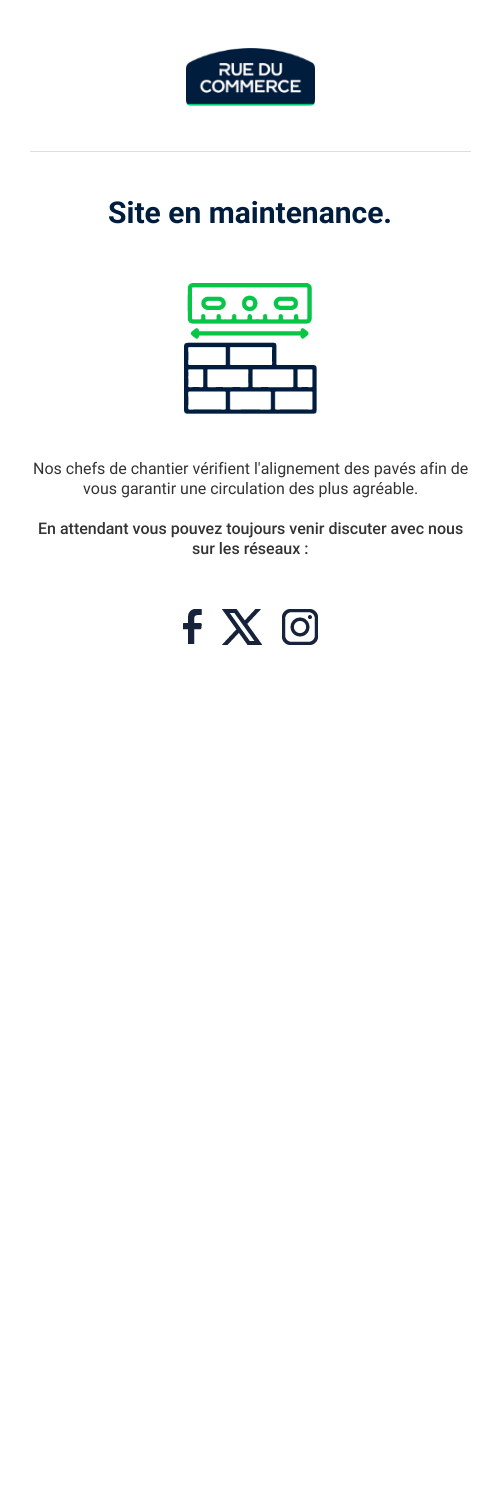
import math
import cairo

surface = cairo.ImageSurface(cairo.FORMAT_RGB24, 501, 1510)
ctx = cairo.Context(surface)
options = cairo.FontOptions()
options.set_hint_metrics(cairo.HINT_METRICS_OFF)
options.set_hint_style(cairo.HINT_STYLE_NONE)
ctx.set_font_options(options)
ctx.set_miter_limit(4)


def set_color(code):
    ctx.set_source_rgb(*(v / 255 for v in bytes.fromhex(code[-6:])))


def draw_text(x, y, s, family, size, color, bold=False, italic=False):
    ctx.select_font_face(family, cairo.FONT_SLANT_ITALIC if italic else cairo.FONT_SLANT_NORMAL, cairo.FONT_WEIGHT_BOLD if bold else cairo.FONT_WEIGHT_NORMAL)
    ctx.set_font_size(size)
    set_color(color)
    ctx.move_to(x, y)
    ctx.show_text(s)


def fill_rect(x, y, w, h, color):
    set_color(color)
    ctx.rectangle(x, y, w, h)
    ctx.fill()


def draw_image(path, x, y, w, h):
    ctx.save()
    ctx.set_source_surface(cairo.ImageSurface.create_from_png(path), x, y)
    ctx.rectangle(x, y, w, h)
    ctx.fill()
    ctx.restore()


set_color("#ffffff")
ctx.paint()
fill_rect(30, 151, 441, 1, "#dfdfdf")
draw_image("assets/img1.png", 186, 48, 129, 58)
draw_text(108, 223, "Site en maintenance.", "Roboto", 30, "#001d3d", bold=True)
draw_image("assets/img2.png", 184, 283, 133, 131)
draw_text(33, 474, "Nos chefs de chantier vérifient l'alignement des pavés afin de", "Roboto", 16, "#333333")
draw_text(83, 494, "vous garantir une circulation des plus agréable.", "Roboto", 16, "#333333")
draw_text(38, 534, "En attendant vous pouvez toujours venir discuter avec nous", "Roboto Medium", 16, "#333333")
draw_text(192, 554, "sur les réseaux :", "Roboto Medium", 16, "#333333")
draw_image("assets/img3.png", 183, 609, 19, 35)
draw_image("assets/img4.png", 222, 609, 40, 36)
draw_image("assets/img5.png", 282, 609, 36, 36)
surface.write_to_png("output.png")
